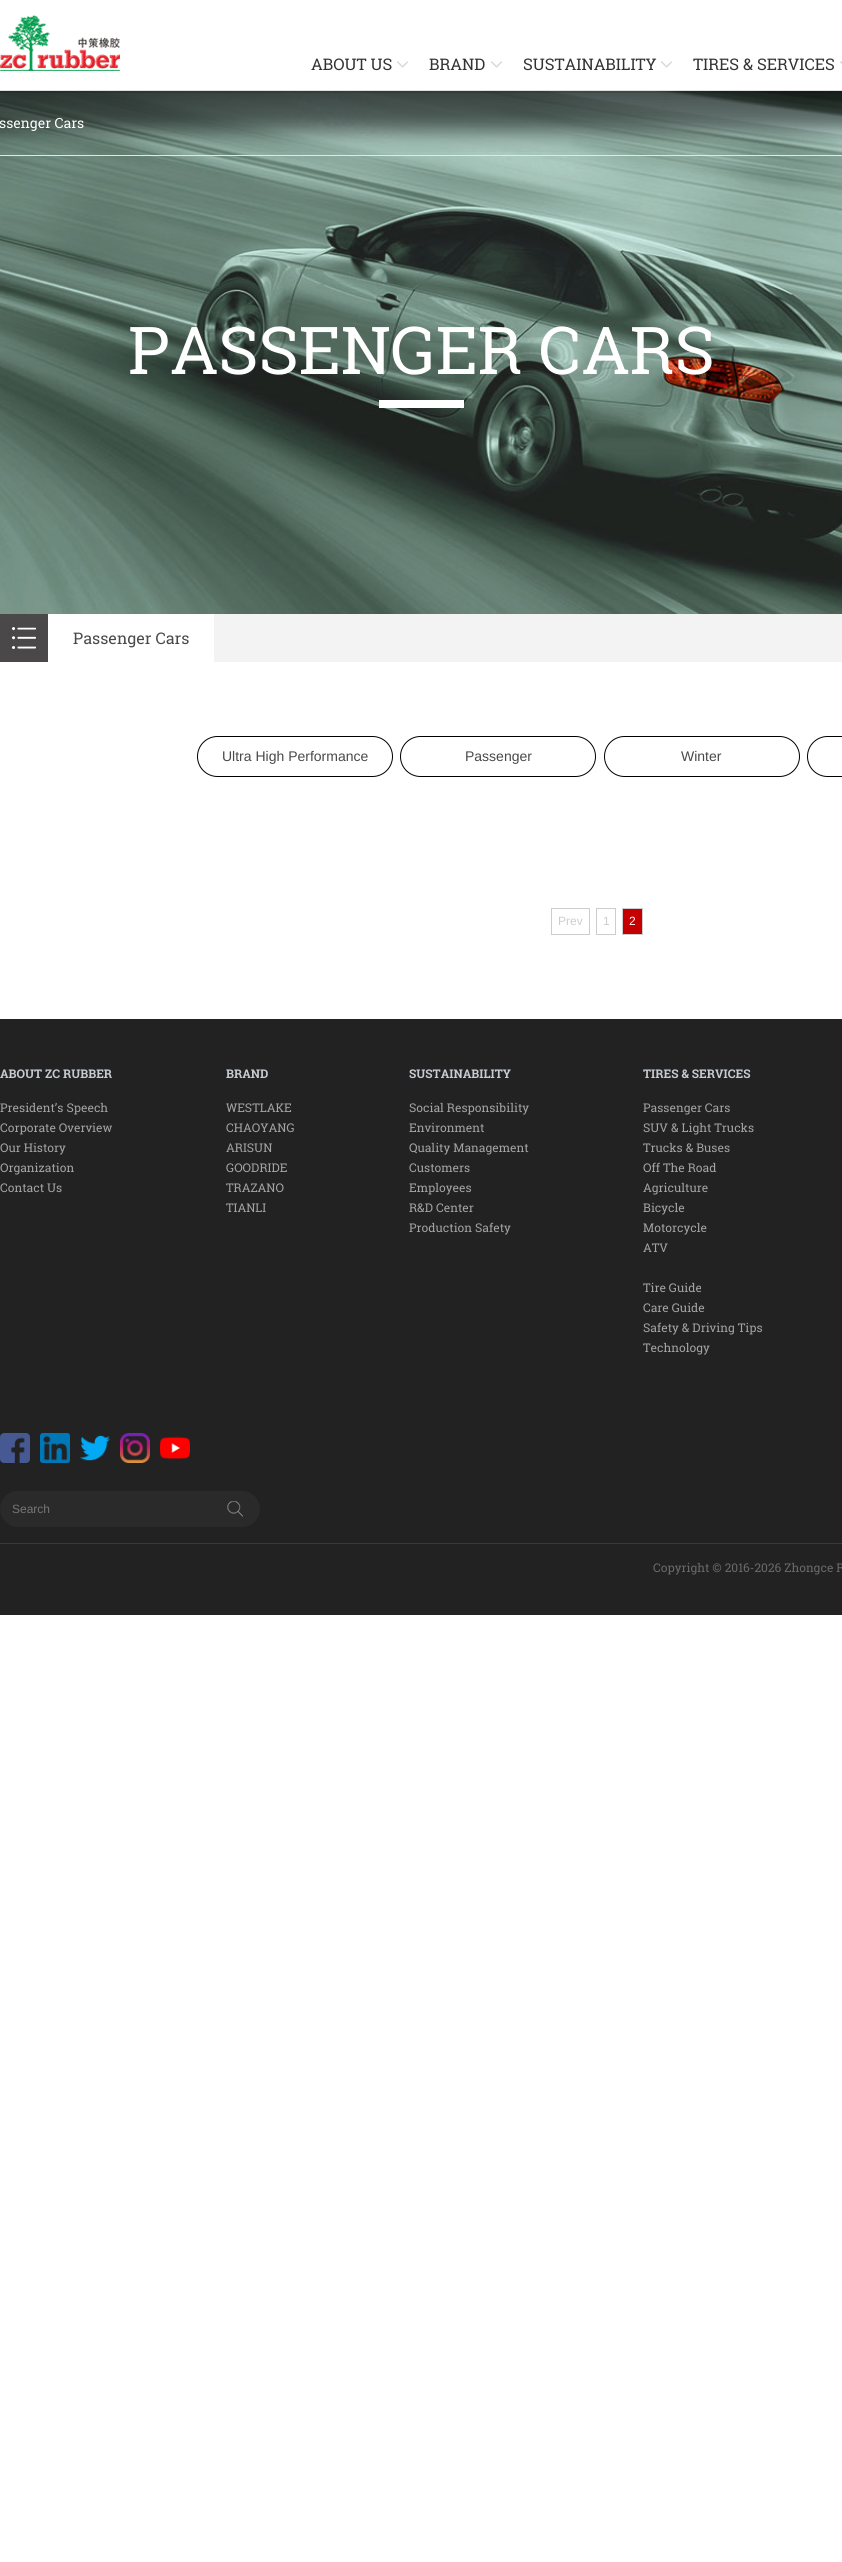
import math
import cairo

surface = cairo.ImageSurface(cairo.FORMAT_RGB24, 842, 2562)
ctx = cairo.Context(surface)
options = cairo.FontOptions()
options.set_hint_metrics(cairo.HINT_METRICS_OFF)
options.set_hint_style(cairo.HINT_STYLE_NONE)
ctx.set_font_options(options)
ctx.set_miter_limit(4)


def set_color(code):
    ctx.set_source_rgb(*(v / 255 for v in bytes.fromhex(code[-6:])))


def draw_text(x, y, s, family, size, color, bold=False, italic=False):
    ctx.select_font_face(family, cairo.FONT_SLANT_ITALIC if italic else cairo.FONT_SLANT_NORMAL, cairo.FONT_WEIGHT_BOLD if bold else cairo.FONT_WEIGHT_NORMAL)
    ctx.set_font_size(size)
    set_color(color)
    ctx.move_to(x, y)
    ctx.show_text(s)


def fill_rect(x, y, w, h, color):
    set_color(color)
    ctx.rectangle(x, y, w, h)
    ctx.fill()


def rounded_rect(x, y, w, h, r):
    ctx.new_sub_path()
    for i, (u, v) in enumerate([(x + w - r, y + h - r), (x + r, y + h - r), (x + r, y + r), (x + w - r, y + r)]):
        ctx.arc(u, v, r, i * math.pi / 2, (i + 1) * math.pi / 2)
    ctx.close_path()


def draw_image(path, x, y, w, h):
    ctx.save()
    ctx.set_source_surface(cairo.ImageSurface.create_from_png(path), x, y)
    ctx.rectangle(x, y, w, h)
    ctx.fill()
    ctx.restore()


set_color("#ffffff")
ctx.paint()
draw_image("assets/img4.png", 0, 91, 842, 523)
draw_image("assets/img5.png", 0, 91, 842, 61)
ctx.set_source_rgba(0.031, 0, 0, 0.13)
ctx.rectangle(0, 90, 842, 3)
ctx.fill()
draw_image("assets/img1.png", 0, 15, 120, 56)
draw_text(311, 70, "ABOUT US", "Roboto Slab", 16, "#333333")
draw_image("assets/img2.png", 397, 61, 11, 7)
draw_text(429, 70, "BRAND", "Roboto Slab", 16, "#333333")
draw_image("assets/img2.png", 491, 61, 11, 7)
draw_text(523, 70, "SUSTAINABILITY", "Roboto Slab", 16, "#333333")
draw_image("assets/img2.png", 661, 61, 11, 7)
draw_text(693, 70, "TIRES & SERVICES", "Roboto Slab", 16, "#333333")
draw_image("assets/img3.png", 840, 61, 2, 3)
fill_rect(0, 155, 842, 1, "#dde6f1")
draw_text(-1, 128, "ssenger Cars", "Roboto Slab", 14, "#ffffff")
fill_rect(379, 400, 85, 8, "#ffffff")
draw_text(128, 374, "PASSENGER CARS", "Roboto Slab", 66, "#ffffff")
fill_rect(214, 614, 628, 48, "#f3f3f3")
draw_image("assets/img6.png", 0, 614, 48, 48)
draw_text(73, 644, "Passenger Cars", "Roboto Slab", 16, "#4a4848")
rounded_rect(197.5, 736.5, 195, 40, 20)
set_color("#000000")
ctx.set_line_width(1)
ctx.stroke()
draw_text(222, 761, "Ultra High Performance", "Liberation Sans", 14, "#4a4848")
rounded_rect(400.5, 736.5, 195, 40, 20)
set_color("#000000")
ctx.stroke()
draw_text(465, 761, "Passenger", "Liberation Sans", 14, "#4a4848")
rounded_rect(604.5, 736.5, 195, 40, 20)
set_color("#000000")
ctx.stroke()
draw_text(681, 761, "Winter", "Liberation Sans", 14, "#4a4848")
rounded_rect(807.5, 736.5, 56, 40, 20)
set_color("#000000")
ctx.stroke()
ctx.rectangle(551.5, 908.5, 38, 26)
set_color("#cdcdcd")
ctx.stroke()
draw_text(558, 925, "Prev", "Liberation Sans", 12, "#cdcdcd")
ctx.rectangle(596.5, 908.5, 19, 26)
ctx.stroke()
draw_text(603, 925, "1", "Liberation Sans", 12, "#cdcdcd")
set_color("#c60000")
ctx.rectangle(622.5, 908.5, 20, 26)
ctx.fill_preserve()
set_color("#cdcdcd")
ctx.stroke()
draw_text(629, 925, "2", "Liberation Sans", 12, "#ffffff")
fill_rect(0, 1019, 842, 596, "#222222")
draw_text(0, 1078, "ABOUT ZC RUBBER", "Roboto Slab", 12, "#c6ccd2", bold=True)
draw_text(0, 1112, "President’s Speech", "Roboto Slab", 12, "#a4a4a4")
draw_text(0, 1132, "Corporate Overview", "Roboto Slab", 12, "#a4a4a4")
draw_text(0, 1152, "Our History", "Roboto Slab", 12, "#a4a4a4")
draw_text(0, 1172, "Organization", "Roboto Slab", 12, "#a4a4a4")
draw_text(0, 1192, "Contact Us", "Roboto Slab", 12, "#a4a4a4")
draw_text(226, 1078, "BRAND", "Roboto Slab", 12, "#c6ccd2", bold=True)
draw_text(226, 1112, "WESTLAKE", "Roboto Slab", 12, "#a4a4a4")
draw_text(226, 1132, "CHAOYANG", "Roboto Slab", 12, "#a4a4a4")
draw_text(226, 1152, "ARISUN", "Roboto Slab", 12, "#a4a4a4")
draw_text(226, 1172, "GOODRIDE", "Roboto Slab", 12, "#a4a4a4")
draw_text(226, 1192, "TRAZANO", "Roboto Slab", 12, "#a4a4a4")
draw_text(226, 1212, "TIANLI", "Roboto Slab", 12, "#a4a4a4")
draw_text(409, 1078, "SUSTAINABILITY", "Roboto Slab", 12, "#c6ccd2", bold=True)
draw_text(409, 1112, "Social Responsibility", "Roboto Slab", 12, "#a4a4a4")
draw_text(409, 1132, "Environment", "Roboto Slab", 12, "#a4a4a4")
draw_text(409, 1152, "Quality Management", "Roboto Slab", 12, "#a4a4a4")
draw_text(409, 1172, "Customers", "Roboto Slab", 12, "#a4a4a4")
draw_text(409, 1192, "Employees", "Roboto Slab", 12, "#a4a4a4")
draw_text(409, 1212, "R&D Center", "Roboto Slab", 12, "#a4a4a4")
draw_text(409, 1232, "Production Safety", "Roboto Slab", 12, "#a4a4a4")
draw_text(643, 1078, "TIRES & SERVICES", "Roboto Slab", 12, "#c6ccd2", bold=True)
draw_text(643, 1112, "Passenger Cars", "Roboto Slab", 12, "#a4a4a4")
draw_text(643, 1132, "SUV & Light Trucks", "Roboto Slab", 12, "#a4a4a4")
draw_text(643, 1152, "Trucks & Buses", "Roboto Slab", 12, "#a4a4a4")
draw_text(643, 1172, "Off The Road", "Roboto Slab", 12, "#a4a4a4")
draw_text(643, 1192, "Agriculture", "Roboto Slab", 12, "#a4a4a4")
draw_text(643, 1212, "Bicycle", "Roboto Slab", 12, "#a4a4a4")
draw_text(643, 1232, "Motorcycle", "Roboto Slab", 12, "#a4a4a4")
draw_text(643, 1252, "ATV", "Roboto Slab", 12, "#a4a4a4")
draw_text(643, 1292, "Tire Guide", "Roboto Slab", 12, "#a4a4a4")
draw_text(643, 1312, "Care Guide", "Roboto Slab", 12, "#a4a4a4")
draw_text(643, 1332, "Safety & Driving Tips", "Roboto Slab", 12, "#a4a4a4")
draw_text(643, 1352, "Technology", "Roboto Slab", 12, "#a4a4a4")
draw_image("assets/img7.png", 0, 1433, 30, 30)
draw_image("assets/img8.png", 40, 1433, 30, 30)
draw_image("assets/img9.png", 80, 1435, 30, 26)
draw_image("assets/img10.png", 120, 1433, 30, 30)
draw_image("assets/img11.png", 160, 1436, 30, 24)
fill_rect(0, 1543, 842, 1, "#393939")
draw_image("assets/img12.png", 0, 1491, 260, 36)
draw_text(12, 1513, "Search", "Liberation Sans", 12, "#757575")
draw_image("assets/img13.png", 227, 1501, 16, 16)
draw_text(653, 1572, "Copyright © 2016-2026 Zhongce R", "Roboto Slab", 12, "#6a6a6a")
surface.write_to_png("output.png")
